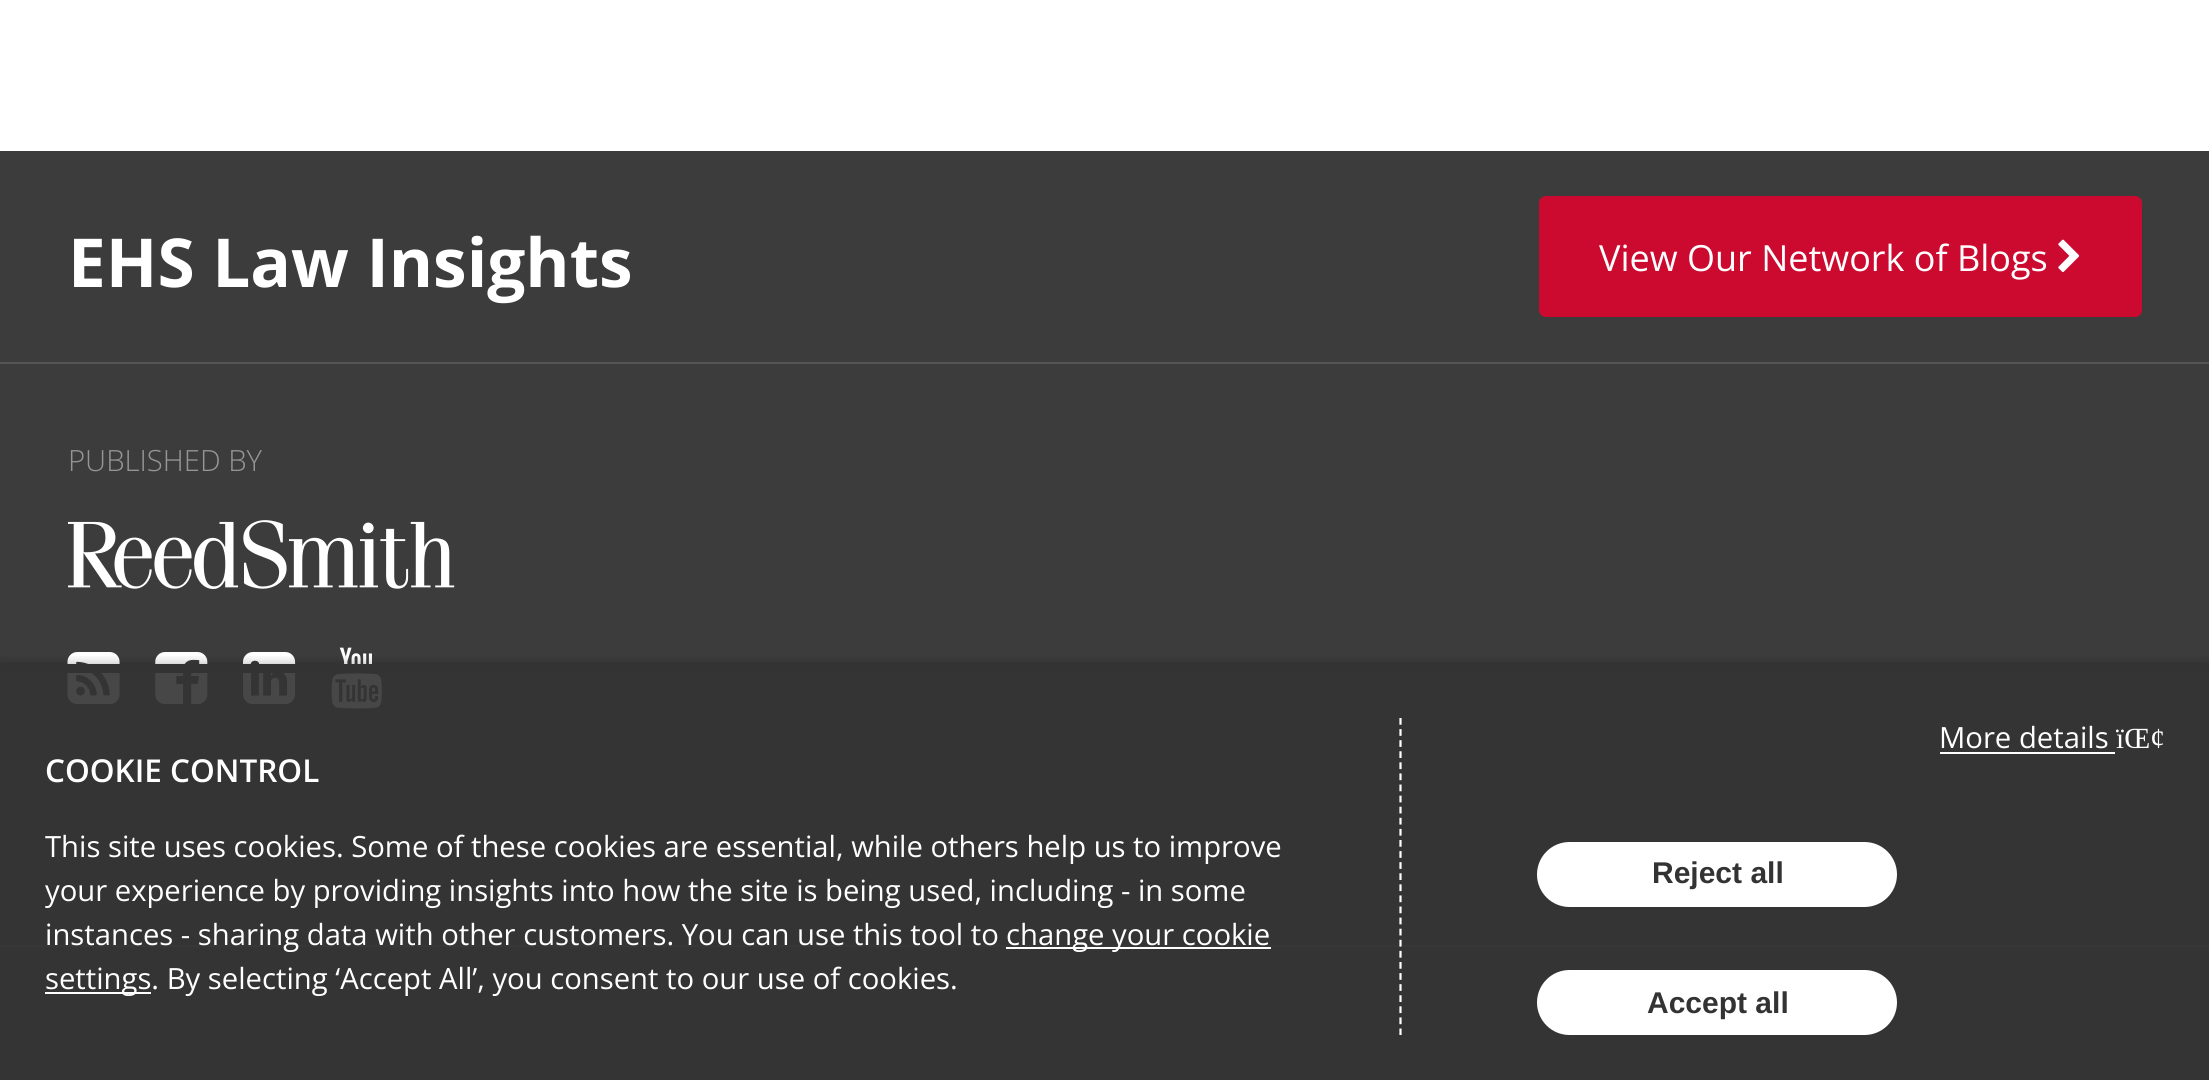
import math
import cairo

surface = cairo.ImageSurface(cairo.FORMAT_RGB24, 2209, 1080)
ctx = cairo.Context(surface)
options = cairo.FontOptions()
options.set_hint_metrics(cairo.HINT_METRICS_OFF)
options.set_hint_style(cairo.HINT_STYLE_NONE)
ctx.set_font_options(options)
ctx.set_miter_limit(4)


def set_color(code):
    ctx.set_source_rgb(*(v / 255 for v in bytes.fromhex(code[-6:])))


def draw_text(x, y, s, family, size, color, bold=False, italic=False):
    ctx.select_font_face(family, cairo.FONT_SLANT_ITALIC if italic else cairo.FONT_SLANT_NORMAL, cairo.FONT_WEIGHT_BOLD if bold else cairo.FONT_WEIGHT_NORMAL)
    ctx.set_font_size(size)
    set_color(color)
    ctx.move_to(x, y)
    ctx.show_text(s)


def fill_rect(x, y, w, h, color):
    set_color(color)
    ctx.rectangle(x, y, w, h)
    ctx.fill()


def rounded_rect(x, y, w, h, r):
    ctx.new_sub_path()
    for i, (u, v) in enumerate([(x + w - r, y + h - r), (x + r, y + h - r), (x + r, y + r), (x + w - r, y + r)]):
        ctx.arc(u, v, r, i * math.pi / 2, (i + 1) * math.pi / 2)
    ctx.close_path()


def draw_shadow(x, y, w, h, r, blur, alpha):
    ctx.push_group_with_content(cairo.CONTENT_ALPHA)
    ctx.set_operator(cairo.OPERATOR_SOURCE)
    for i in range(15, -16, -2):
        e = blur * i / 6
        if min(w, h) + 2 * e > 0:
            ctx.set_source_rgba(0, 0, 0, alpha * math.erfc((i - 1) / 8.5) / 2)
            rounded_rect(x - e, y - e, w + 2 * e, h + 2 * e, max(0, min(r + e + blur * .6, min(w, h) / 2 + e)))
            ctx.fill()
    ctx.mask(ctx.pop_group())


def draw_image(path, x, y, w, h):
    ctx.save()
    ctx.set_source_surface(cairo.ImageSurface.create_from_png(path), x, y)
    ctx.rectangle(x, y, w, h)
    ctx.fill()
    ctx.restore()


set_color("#ffffff")
ctx.paint()
fill_rect(0, 151, 2209, 929, "#3d3c3c")
fill_rect(0, 362, 2209, 2, "#565555")
draw_text(68, 287, "EHS Law Insights", "Open Sans", 67.5, "#ffffff", bold=True)
set_color("#cc092f")
rounded_rect(1540, 197, 601, 119, 6)
ctx.fill_preserve()
ctx.stroke()
draw_text(1599, 271, "View Our Network of Blogs", "Open Sans", 36, "#ffffff")
draw_image("assets/img1.png", 2058, 239, 22, 33)
draw_text(68, 471, "PUBLISHED BY", "Open Sans Light", 29.25, "#969696")
draw_image("assets/img2.png", 68, 520, 387, 69)
draw_image("assets/img3.png", 67, 652, 53, 53)
draw_image("assets/img4.png", 155, 652, 53, 53)
draw_image("assets/img5.png", 243, 652, 53, 53)
draw_image("assets/img6.png", 331, 647, 51, 62)
fill_rect(0, 945, 2209, 2, "#5c5c5c")
ctx.save()
ctx.rectangle(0, 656, 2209, 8)
ctx.clip()
set_color("#000000")
draw_shadow(0, 664, 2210, 416, 0, 5.5, 0.3)
ctx.restore()
ctx.set_source_rgba(0.2, 0.2, 0.2, 0.9)
ctx.rectangle(0, 673, 2209, 407)
ctx.fill()
fill_rect(0, 664, 2209, 9, "#333333")
draw_text(1939, 748, "More details", "Open Sans", 29.25, "#ffffff")
fill_rect(1940, 752, 175, 2, "#ffffff")
draw_text(2116, 748, "ïŒ¢", "Liberation Serif", 29.25, "#ffffff")
ctx.new_path()
ctx.move_to(1400.5, 718)
ctx.line_to(1400.5, 1035)
ctx.set_line_width(2.2)
ctx.set_dash([6.75, 4.34])
ctx.stroke()
draw_text(45, 782, "COOKIE CONTROL", "Open Sans SemiBold", 31.5, "#ffffff")
draw_text(45, 857, "This site uses cookies. Some of these cookies are essential, while others help us to improve", "Open Sans", 29.25, "#ffffff")
draw_text(45, 901, "your experience by providing insights into how the site is being used, including - in some", "Open Sans", 29.25, "#ffffff")
draw_text(45, 945, "instances - sharing data with other customers. You can use this tool to", "Open Sans", 29.25, "#ffffff")
fill_rect(1006, 947, 265, 2, "#ffffff")
draw_text(1006, 945, "change your cookie", "Open Sans", 29.25, "#ffffff")
fill_rect(45, 992, 106, 2, "#ffffff")
draw_text(45, 989, "settings. By selecting ‘Accept All’, you consent to our use of cookies.", "Open Sans", 29.25, "#ffffff")
rounded_rect(1537, 842, 360, 65, 32.5)
ctx.fill()
draw_text(1652, 883, "Reject all", "Liberation Sans", 30, "#333333", bold=True)
set_color("#ffffff")
rounded_rect(1537, 970, 360, 65, 32.5)
ctx.fill()
draw_text(1647, 1013, "Accept all", "Liberation Sans", 30, "#333333", bold=True)
surface.write_to_png("output.png")
